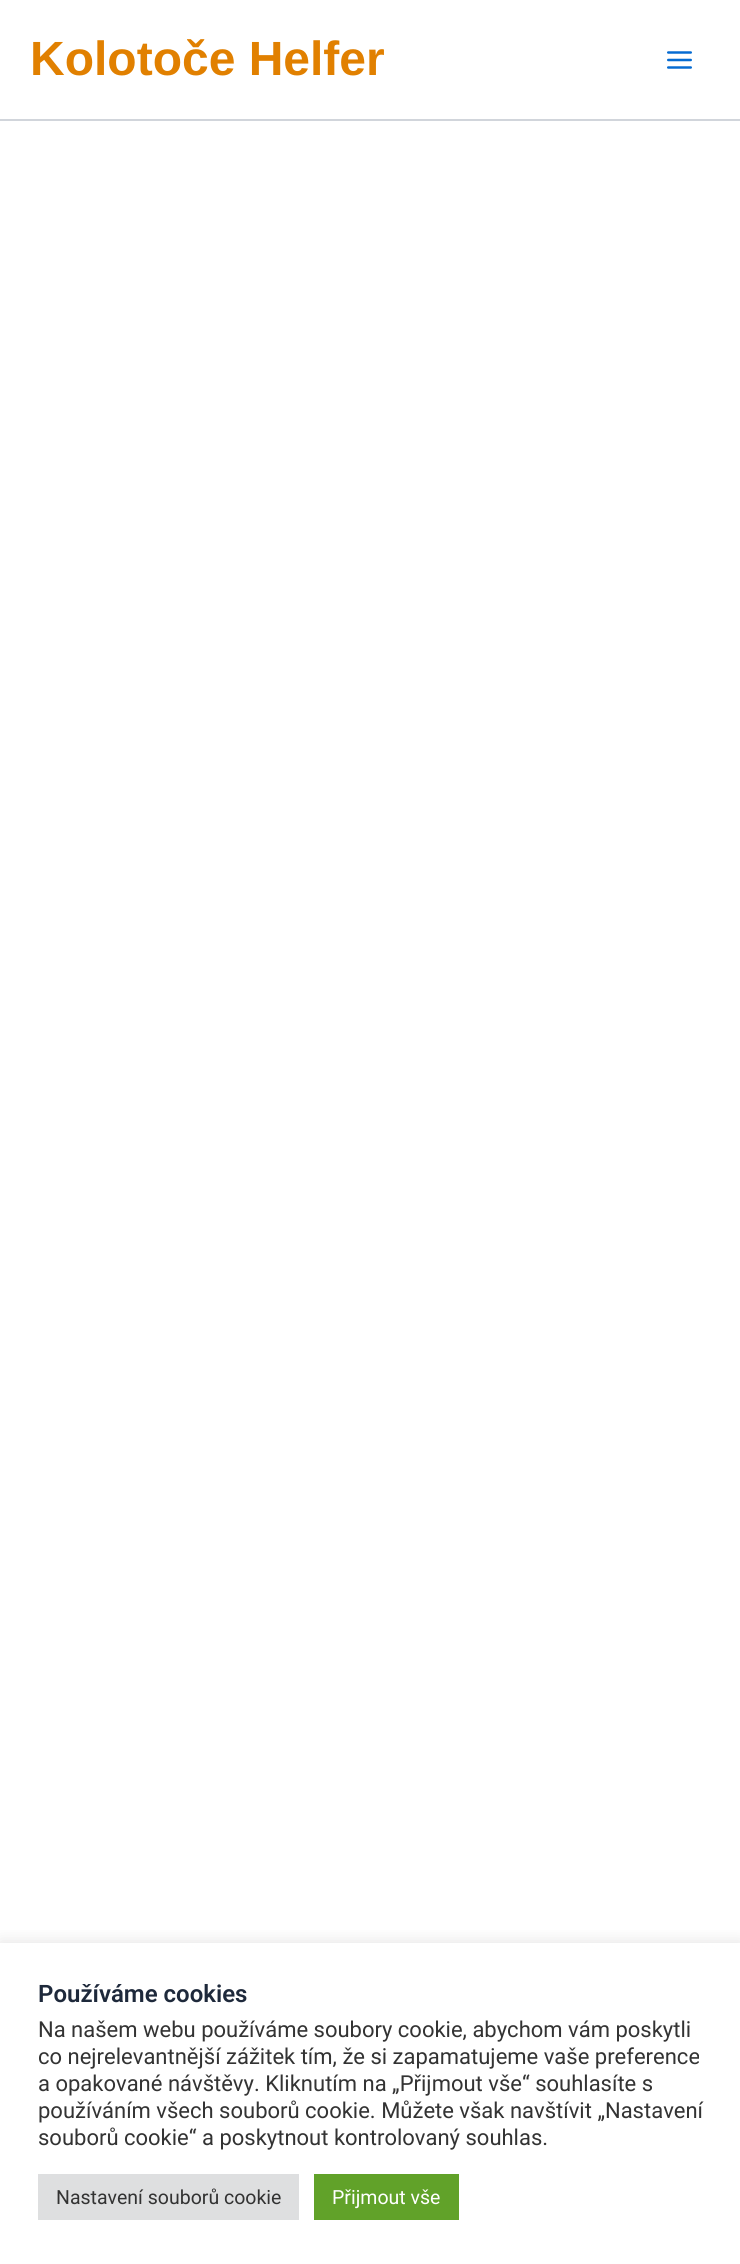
import math
import cairo

surface = cairo.ImageSurface(cairo.FORMAT_RGB24, 740, 2264)
ctx = cairo.Context(surface)
options = cairo.FontOptions()
options.set_hint_metrics(cairo.HINT_METRICS_OFF)
options.set_hint_style(cairo.HINT_STYLE_NONE)
ctx.set_font_options(options)
ctx.set_miter_limit(4)


def set_color(code):
    ctx.set_source_rgb(*(v / 255 for v in bytes.fromhex(code[-6:])))


def draw_text(x, y, s, family, size, color, bold=False, italic=False):
    ctx.select_font_face(family, cairo.FONT_SLANT_ITALIC if italic else cairo.FONT_SLANT_NORMAL, cairo.FONT_WEIGHT_BOLD if bold else cairo.FONT_WEIGHT_NORMAL)
    ctx.set_font_size(size)
    set_color(color)
    ctx.move_to(x, y)
    ctx.show_text(s)


def fill_rect(x, y, w, h, color):
    set_color(color)
    ctx.rectangle(x, y, w, h)
    ctx.fill()


def rounded_rect(x, y, w, h, r):
    ctx.new_sub_path()
    for i, (u, v) in enumerate([(x + w - r, y + h - r), (x + r, y + h - r), (x + r, y + r), (x + w - r, y + r)]):
        ctx.arc(u, v, r, i * math.pi / 2, (i + 1) * math.pi / 2)
    ctx.close_path()


def draw_shadow(x, y, w, h, r, blur, alpha):
    ctx.push_group_with_content(cairo.CONTENT_ALPHA)
    ctx.set_operator(cairo.OPERATOR_SOURCE)
    for i in range(15, -16, -2):
        e = blur * i / 6
        if min(w, h) + 2 * e > 0:
            ctx.set_source_rgba(0, 0, 0, alpha * math.erfc((i - 1) / 8.5) / 2)
            rounded_rect(x - e, y - e, w + 2 * e, h + 2 * e, max(0, min(r + e + blur * .6, min(w, h) / 2 + e)))
            ctx.fill()
    ctx.mask(ctx.pop_group())


def draw_image(path, x, y, w, h):
    ctx.save()
    ctx.set_source_surface(cairo.ImageSurface.create_from_png(path), x, y)
    ctx.rectangle(x, y, w, h)
    ctx.fill()
    ctx.restore()


set_color("#ffffff")
ctx.paint()
fill_rect(0, 119, 740, 2, "#d1d5db")
draw_text(30, 75, "Kolotoče Helfer", "Liberation Sans", 48, "#e18000", bold=True)
draw_image("assets/img1.png", 667, 51, 25, 18)
ctx.save()
ctx.rectangle(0, 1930, 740, 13)
ctx.clip()
set_color("#acabab")
draw_shadow(0, 1941, 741, 323, 0, 7.5, 0.3)
ctx.restore()
draw_text(38, 2002, "Používáme cookies", "Roboto SemiBold", 24, "#1e293b")
draw_text(38, 2037, "Na našem webu používáme soubory cookie, abychom vám poskytli", "Roboto", 22, "#333333")
draw_text(38, 2064, "co nejrelevantnější zážitek tím, že si zapamatujeme vaše preference", "Roboto", 22, "#333333")
draw_text(38, 2091, "a opakované návštěvy. Kliknutím na „Přijmout vše“ souhlasíte s", "Roboto", 22, "#333333")
draw_text(38, 2118, "používáním všech souborů cookie. Můžete však navštívit „Nastavení", "Roboto", 22, "#333333")
draw_text(38, 2145, "souborů cookie“ a poskytnout kontrolovaný souhlas.", "Roboto", 22, "#333333")
fill_rect(38, 2174, 261, 46, "#dedfe0")
draw_text(56, 2204, "Nastavení souborů cookie", "Roboto", 19.5, "#333333")
fill_rect(314, 2174, 145, 46, "#61a229")
draw_text(332, 2204, "Přijmout vše", "Roboto", 19.5, "#ffffff")
surface.write_to_png("output.png")
